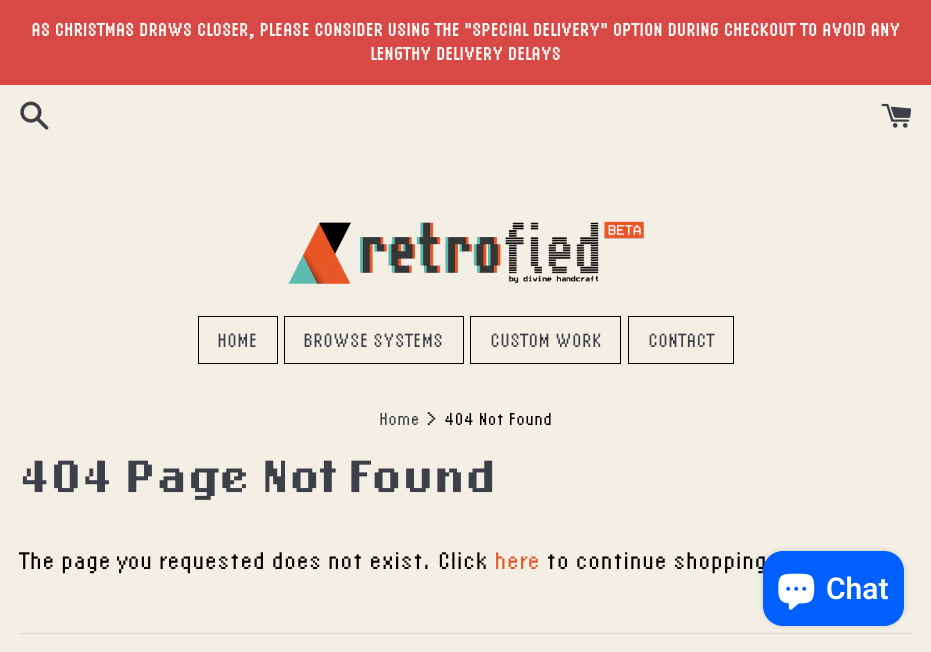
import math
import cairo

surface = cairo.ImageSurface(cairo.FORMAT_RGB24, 931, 652)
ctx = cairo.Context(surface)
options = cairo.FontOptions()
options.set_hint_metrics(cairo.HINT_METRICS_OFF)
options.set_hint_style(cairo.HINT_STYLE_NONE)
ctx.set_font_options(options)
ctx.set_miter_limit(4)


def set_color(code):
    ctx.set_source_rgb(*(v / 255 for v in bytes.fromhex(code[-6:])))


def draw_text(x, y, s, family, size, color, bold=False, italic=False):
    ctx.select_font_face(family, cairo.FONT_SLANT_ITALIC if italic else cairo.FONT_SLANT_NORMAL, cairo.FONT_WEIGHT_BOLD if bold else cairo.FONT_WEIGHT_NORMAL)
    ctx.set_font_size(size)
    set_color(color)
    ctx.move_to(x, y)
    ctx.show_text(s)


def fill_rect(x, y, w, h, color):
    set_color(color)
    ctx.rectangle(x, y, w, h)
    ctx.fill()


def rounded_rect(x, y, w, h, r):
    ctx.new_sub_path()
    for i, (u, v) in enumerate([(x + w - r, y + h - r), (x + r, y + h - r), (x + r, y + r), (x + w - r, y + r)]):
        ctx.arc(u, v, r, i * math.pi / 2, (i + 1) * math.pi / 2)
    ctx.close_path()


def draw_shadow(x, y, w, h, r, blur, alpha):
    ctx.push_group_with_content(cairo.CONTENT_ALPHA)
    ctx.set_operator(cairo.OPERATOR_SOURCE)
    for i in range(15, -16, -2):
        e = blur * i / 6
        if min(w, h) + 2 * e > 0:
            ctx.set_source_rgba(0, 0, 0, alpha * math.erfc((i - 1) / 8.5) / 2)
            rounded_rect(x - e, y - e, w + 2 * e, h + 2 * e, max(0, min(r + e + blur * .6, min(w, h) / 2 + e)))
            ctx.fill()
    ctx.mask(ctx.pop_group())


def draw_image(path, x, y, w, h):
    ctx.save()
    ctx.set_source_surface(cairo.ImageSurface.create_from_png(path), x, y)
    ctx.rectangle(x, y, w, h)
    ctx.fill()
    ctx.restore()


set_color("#f4efe5")
ctx.paint()
fill_rect(0, 0, 931, 85, "#d84845")
draw_text(31, 36, "AS CHRISTMAS DRAWS CLOSER, PLEASE CONSIDER USING THE \"SPECIAL DELIVERY\" OPTION DURING CHECKOUT TO AVOID ANY", "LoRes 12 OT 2", 18.75, "#fcfaf7", bold=True)
draw_text(370, 60, "LENGTHY DELIVERY DELAYS", "LoRes 12 OT 2", 18.75, "#fcfaf7", bold=True)
draw_image("assets/img1.png", 20, 101, 29, 29)
draw_image("assets/img2.png", 881, 103, 31, 25)
draw_image("assets/img3.png", 288, 221, 356, 63)
ctx.rectangle(198.5, 316.5, 79, 47)
set_color("#000000")
ctx.set_line_width(1)
ctx.stroke()
draw_text(217, 347, "HOME", "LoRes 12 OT", 20, "#3c4049")
ctx.rectangle(284.5, 316.5, 179, 47)
set_color("#000000")
ctx.stroke()
draw_text(303, 347, "BROWSE SYSTEMS", "LoRes 12 OT", 20, "#3c4049")
ctx.rectangle(470.5, 316.5, 150, 47)
set_color("#000000")
ctx.stroke()
draw_text(490, 347, "CUSTOM WORK", "LoRes 12 OT", 20, "#3c4049")
ctx.rectangle(628.5, 316.5, 105, 47)
set_color("#000000")
ctx.stroke()
draw_text(648, 347, "CONTACT", "LoRes 12 OT", 20, "#3c4049")
draw_text(379, 425, "Home", "LoRes 12 OT", 18, "#3c4049")
draw_text(426, 425, "›", "LoRes 12 OT", 22, "#000000")
draw_text(444, 425, "404 Not Found", "LoRes 12 OT", 18, "#000000")
draw_text(19, 492, "404 Page Not Found", "LoRes 12 OT", 46.9, "#3c4049", bold=True)
draw_text(19, 569, "The page you requested does not exist. Click", "LoRes 12 OT", 25, "#000000")
draw_text(494, 569, "here", "LoRes 12 OT", 25, "#ea5627")
draw_text(546, 569, "to continue shopping", "LoRes 12 OT", 25, "#000000")
fill_rect(19, 633, 894, 1, "#d7d8d2")
set_color("#000000")
draw_shadow(763, 551, 141, 75, 20, 3, 0.15)
set_color("#005fff")
rounded_rect(763, 551, 141, 75, 20)
ctx.fill()
draw_image("assets/img4.png", 778, 573, 37, 37)
draw_text(826, 599, "Chat", "Roboto SemiBold", 30, "#ffffff")
surface.write_to_png("output.png")
